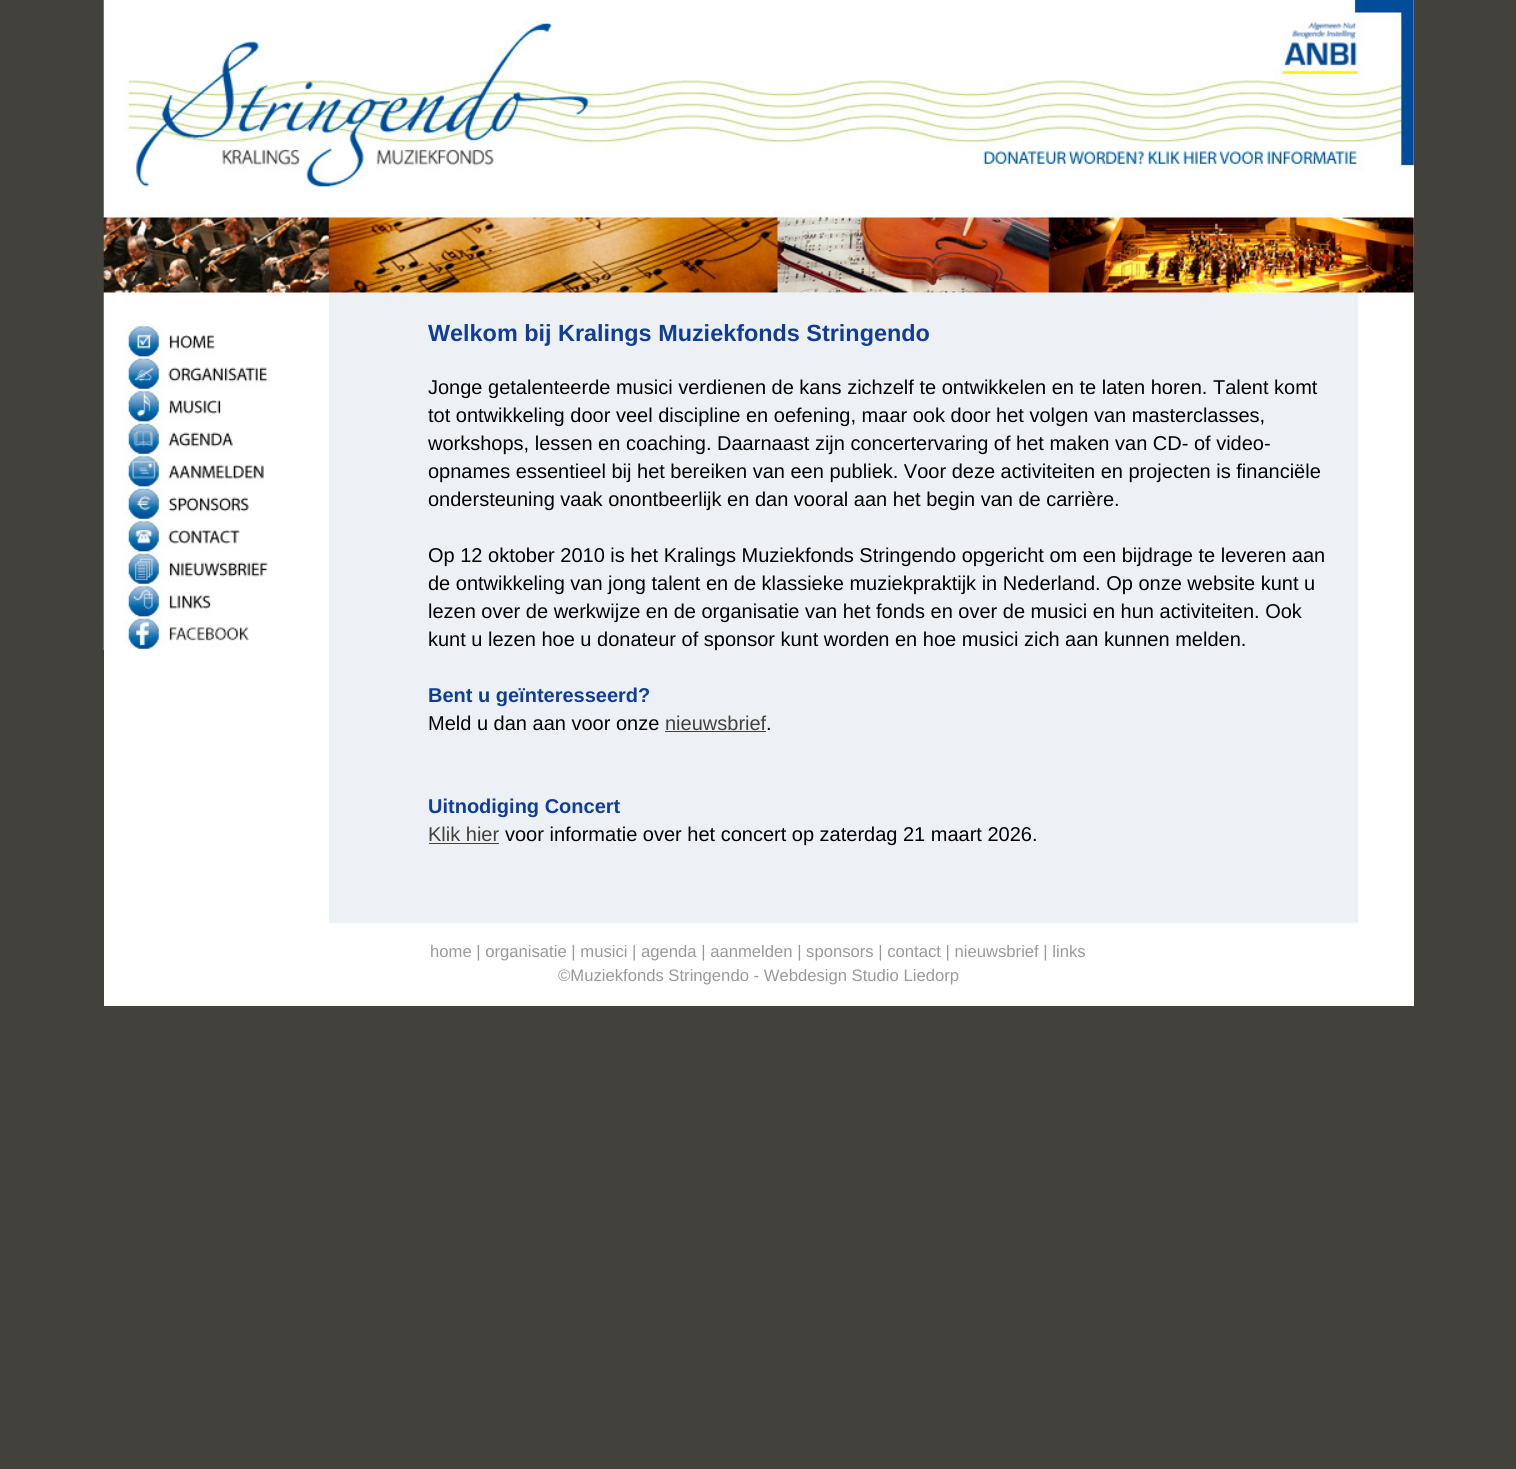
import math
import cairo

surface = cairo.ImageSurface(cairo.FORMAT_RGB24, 1516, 1469)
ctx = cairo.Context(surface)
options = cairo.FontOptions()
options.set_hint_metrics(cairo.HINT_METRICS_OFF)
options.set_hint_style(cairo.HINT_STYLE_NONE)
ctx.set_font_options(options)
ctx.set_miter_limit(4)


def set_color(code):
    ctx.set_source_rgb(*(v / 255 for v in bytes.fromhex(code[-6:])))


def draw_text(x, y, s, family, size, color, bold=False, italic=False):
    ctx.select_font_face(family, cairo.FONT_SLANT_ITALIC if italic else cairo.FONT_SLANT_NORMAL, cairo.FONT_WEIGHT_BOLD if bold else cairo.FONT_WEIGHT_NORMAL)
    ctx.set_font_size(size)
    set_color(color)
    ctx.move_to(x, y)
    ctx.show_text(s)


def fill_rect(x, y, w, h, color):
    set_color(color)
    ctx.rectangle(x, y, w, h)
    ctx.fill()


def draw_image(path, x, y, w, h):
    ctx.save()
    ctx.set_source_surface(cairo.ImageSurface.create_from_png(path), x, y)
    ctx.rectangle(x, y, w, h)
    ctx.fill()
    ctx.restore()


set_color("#42413c")
ctx.paint()
fill_rect(104, 0, 1310, 1006, "#ffffff")
draw_image("assets/img2.png", 103, 292, 1, 33)
draw_image("assets/img1.png", 103, 0, 1311, 293)
draw_image("assets/img3.png", 103, 325, 113, 33)
draw_image("assets/img4.png", 103, 357, 167, 33)
draw_image("assets/img5.png", 103, 390, 118, 33)
draw_image("assets/img6.png", 103, 422, 130, 33)
draw_image("assets/img7.png", 103, 455, 161, 33)
draw_image("assets/img8.png", 103, 487, 146, 33)
draw_image("assets/img9.png", 103, 520, 138, 33)
draw_image("assets/img10.png", 103, 552, 165, 33)
draw_image("assets/img11.png", 103, 585, 108, 33)
draw_image("assets/img12.png", 103, 617, 146, 33)
fill_rect(329, 293, 1029, 630, "#edf1f5")
draw_text(428, 341, "Welkom bij Kralings Muziekfonds Stringendo", "Liberation Sans", 23.4, "#103d95", bold=True)
draw_text(428, 394, "Jonge getalenteerde musici verdienen de kans zichzelf te ontwikkelen en te laten horen. Talent komt", "Liberation Sans", 20, "#000000")
draw_text(428, 422, "tot ontwikkeling door veel discipline en oefening, maar ook door het volgen van masterclasses,", "Liberation Sans", 20, "#000000")
draw_text(428, 450, "workshops, lessen en coaching. Daarnaast zijn concertervaring of het maken van CD- of video-", "Liberation Sans", 20, "#000000")
draw_text(428, 478, "opnames essentieel bij het bereiken van een publiek. Voor deze activiteiten en projecten is financiële", "Liberation Sans", 20, "#000000")
draw_text(428, 506, "ondersteuning vaak onontbeerlijk en dan vooral aan het begin van de carrière.", "Liberation Sans", 20, "#000000")
draw_text(428, 562, "Op 12 oktober 2010 is het Kralings Muziekfonds Stringendo opgericht om een bijdrage te leveren aan", "Liberation Sans", 20, "#000000")
draw_text(428, 590, "de ontwikkeling van jong talent en de klassieke muziekpraktijk in Nederland. Op onze website kunt u", "Liberation Sans", 20, "#000000")
draw_text(428, 618, "lezen over de werkwijze en de organisatie van het fonds en over de musici en hun activiteiten. Ook", "Liberation Sans", 20, "#000000")
draw_text(428, 646, "kunt u lezen hoe u donateur of sponsor kunt worden en hoe musici zich aan kunnen melden.", "Liberation Sans", 20, "#000000")
draw_text(428, 702, "Bent u geïnteresseerd?", "Liberation Sans", 20, "#103d95", bold=True)
draw_text(428, 730, "Meld u dan aan voor onze", "Liberation Sans", 20, "#000000")
draw_text(665, 730, "nieuwsbrief", "Liberation Sans", 20, "#42413c")
fill_rect(665, 731, 101, 1, "#42413c")
draw_text(766, 730, ".", "Liberation Sans", 20, "#000000")
draw_text(428, 813, "Uitnodiging Concert", "Liberation Sans", 20, "#103d95", bold=True)
draw_text(428, 841, "Klik hier", "Liberation Sans", 20, "#42413c")
fill_rect(429, 843, 70, 1, "#42413c")
draw_text(505, 841, "voor informatie over het concert op zaterdag 21 maart 2026.", "Liberation Sans", 20, "#000000")
draw_text(430, 957, "home | organisatie | musici | agenda | aanmelden | sponsors | contact | nieuwsbrief | links", "Liberation Sans", 16.65, "#999999")
draw_text(558, 981, "©Muziekfonds Stringendo - Webdesign Studio Liedorp", "Liberation Sans", 16.65, "#999999")
surface.write_to_png("output.png")
